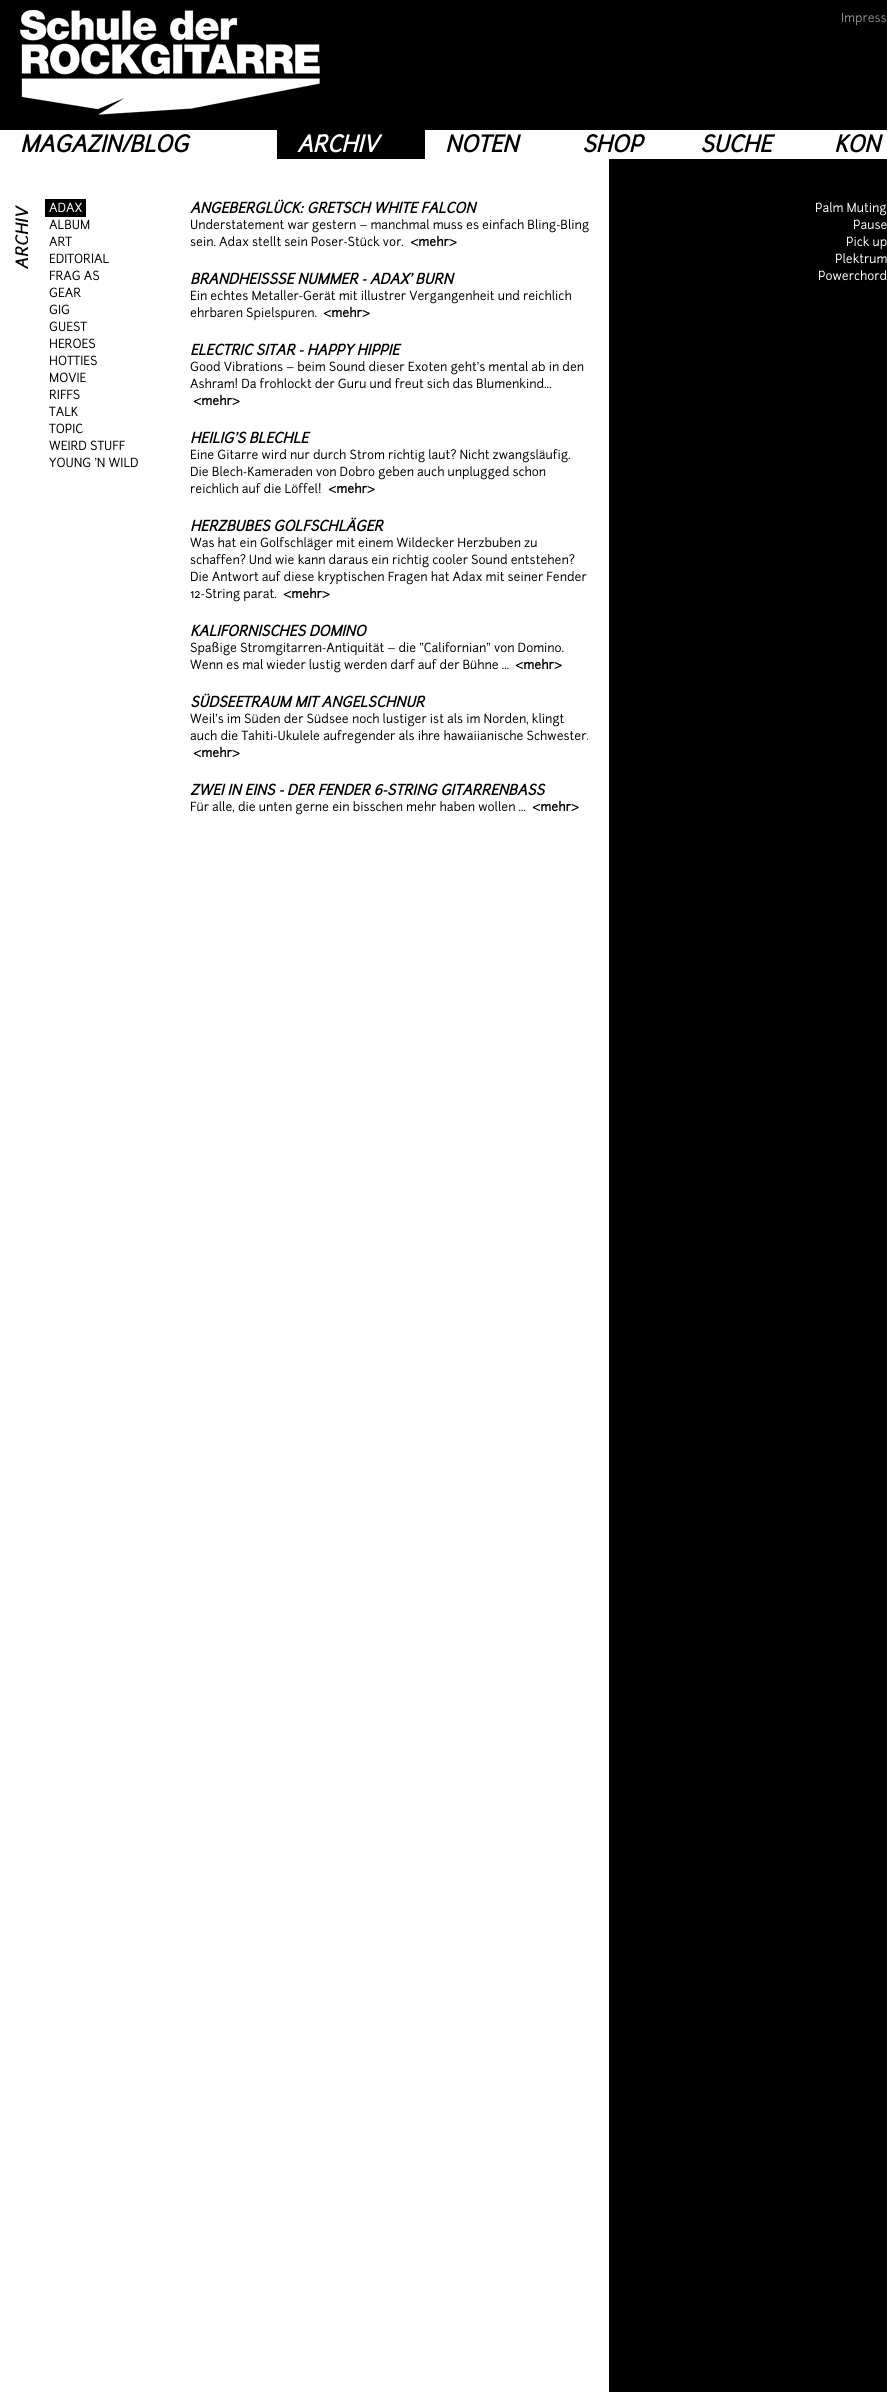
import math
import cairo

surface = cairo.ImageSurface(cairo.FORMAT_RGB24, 887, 2392)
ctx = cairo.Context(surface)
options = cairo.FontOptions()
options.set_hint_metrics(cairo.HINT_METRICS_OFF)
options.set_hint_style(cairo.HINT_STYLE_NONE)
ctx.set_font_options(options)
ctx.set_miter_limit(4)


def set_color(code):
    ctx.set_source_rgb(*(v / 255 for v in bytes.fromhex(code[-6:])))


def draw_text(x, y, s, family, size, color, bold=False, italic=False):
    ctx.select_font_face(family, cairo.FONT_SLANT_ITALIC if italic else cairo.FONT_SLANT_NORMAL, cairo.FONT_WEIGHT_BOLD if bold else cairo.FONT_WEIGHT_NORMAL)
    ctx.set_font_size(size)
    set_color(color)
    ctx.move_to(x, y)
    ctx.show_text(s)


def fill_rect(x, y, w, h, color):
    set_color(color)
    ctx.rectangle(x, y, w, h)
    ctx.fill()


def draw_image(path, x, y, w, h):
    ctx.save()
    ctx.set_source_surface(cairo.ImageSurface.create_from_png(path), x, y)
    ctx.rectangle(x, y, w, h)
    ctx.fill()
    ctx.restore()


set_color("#000000")
ctx.paint()
fill_rect(0, 159, 609, 2233, "#ffffff")
draw_image("assets/img1.png", 20, 10, 300, 105)
draw_text(841, 22, "Impress", "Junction", 12, "#888888")
fill_rect(0, 130, 887, 29, "#ffffff")
draw_text(20, 152, "MAGAZIN/BLOG", "Junction", 22, "#000000", bold=True, italic=True)
fill_rect(277, 130, 148, 29, "#000000")
draw_text(297, 152, "ARCHIV", "Junction", 22, "#ffffff", bold=True, italic=True)
draw_text(445, 152, "NOTEN", "Junction", 22, "#000000", bold=True, italic=True)
draw_text(582, 152, "SHOP", "Junction", 22, "#000000", bold=True, italic=True)
draw_text(700, 152, "SUCHE", "Junction", 22, "#000000", bold=True, italic=True)
draw_text(834, 152, "KON", "Junction", 22, "#000000", bold=True, italic=True)
draw_image("assets/img2.png", 15, 205, 13, 64)
fill_rect(45, 199, 41, 18, "#000000")
draw_text(49, 212, "ADAX", "Junction", 12, "#ffffff")
draw_text(49, 229, "ALBUM", "Junction", 12, "#000000")
draw_text(49, 246, "ART", "Junction", 12, "#000000")
draw_text(49, 263, "EDITORIAL", "Junction", 12, "#000000")
draw_text(49, 280, "FRAG AS", "Junction", 12, "#000000")
draw_text(49, 297, "GEAR", "Junction", 12, "#000000")
draw_text(49, 314, "GIG", "Junction", 12, "#000000")
draw_text(49, 331, "GUEST", "Junction", 12, "#000000")
draw_text(49, 348, "HEROES", "Junction", 12, "#000000")
draw_text(49, 365, "HOTTIES", "Junction", 12, "#000000")
draw_text(49, 382, "MOVIE", "Junction", 12, "#000000")
draw_text(49, 399, "RIFFS", "Junction", 12, "#000000")
draw_text(49, 416, "TALK", "Junction", 12, "#000000")
draw_text(49, 433, "TOPIC", "Junction", 12, "#000000")
draw_text(49, 450, "WEIRD STUFF", "Junction", 12, "#000000")
draw_text(49, 467, "YOUNG 'N WILD", "Junction", 12, "#000000")
draw_text(190, 213, "ANGEBERGLÜCK: GRETSCH WHITE FALCON", "Junction", 14, "#000000", bold=True, italic=True)
draw_text(190, 229, "Understatement war gestern – manchmal muss es einfach Bling-Bling", "Junction", 12, "#000000")
draw_text(190, 246, "sein. Adax stellt sein Poser-Stück vor.", "Junction", 12, "#000000")
draw_text(410, 246, "<mehr>", "Junction", 12, "#000000", bold=True)
draw_text(190, 284, "BRANDHEISSSE NUMMER - ADAX' BURN", "Junction", 14, "#000000", bold=True, italic=True)
draw_text(190, 300, "Ein echtes Metaller-Gerät mit illustrer Vergangenheit und reichlich", "Junction", 12, "#000000")
draw_text(190, 317, "ehrbaren Spielspuren.", "Junction", 12, "#000000")
draw_text(323, 317, "<mehr>", "Junction", 12, "#000000", bold=True)
draw_text(190, 355, "ELECTRIC SITAR - HAPPY HIPPIE", "Junction", 14, "#000000", bold=True, italic=True)
draw_text(190, 371, "Good Vibrations – beim Sound dieser Exoten geht’s mental ab in den", "Junction", 12, "#000000")
draw_text(190, 388, "Ashram! Da frohlockt der Guru und freut sich das Blumenkind...", "Junction", 12, "#000000")
draw_text(193, 405, "<mehr>", "Junction", 12, "#000000", bold=True)
draw_text(190, 443, "HEILIG'S BLECHLE", "Junction", 14, "#000000", bold=True, italic=True)
draw_text(190, 459, "Eine Gitarre wird nur durch Strom richtig laut? Nicht zwangsläufig.", "Junction", 12, "#000000")
draw_text(190, 476, "Die Blech-Kameraden von Dobro geben auch unplugged schon", "Junction", 12, "#000000")
draw_text(190, 493, "reichlich auf die Löffel!", "Junction", 12, "#000000")
draw_text(328, 493, "<mehr>", "Junction", 12, "#000000", bold=True)
draw_text(190, 531, "HERZBUBES GOLFSCHLÄGER", "Junction", 14, "#000000", bold=True, italic=True)
draw_text(190, 547, "Was hat ein Golfschläger mit einem Wildecker Herzbuben zu", "Junction", 12, "#000000")
draw_text(190, 564, "schaffen? Und wie kann daraus ein richtig cooler Sound entstehen?", "Junction", 12, "#000000")
draw_text(190, 581, "Die Antwort auf diese kryptischen Fragen hat Adax mit seiner Fender", "Junction", 12, "#000000")
draw_text(190, 598, "12-String parat.", "Junction", 12, "#000000")
draw_text(283, 598, "<mehr>", "Junction", 12, "#000000", bold=True)
draw_text(190, 636, "KALIFORNISCHES DOMINO", "Junction", 14, "#000000", bold=True, italic=True)
draw_text(190, 652, "Spaßige Stromgitarren-Antiquität – die \"Californian\" von Domino.", "Junction", 12, "#000000")
draw_text(190, 669, "Wenn es mal wieder lustig werden darf auf der Bühne ...", "Junction", 12, "#000000")
draw_text(515, 669, "<mehr>", "Junction", 12, "#000000", bold=True)
draw_text(190, 707, "SÜDSEETRAUM MIT ANGELSCHNUR", "Junction", 14, "#000000", bold=True, italic=True)
draw_text(190, 723, "Weil's im Süden der Südsee noch lustiger ist als im Norden, klingt", "Junction", 12, "#000000")
draw_text(190, 740, "auch die Tahiti-Ukulele aufregender als ihre hawaiianische Schwester.", "Junction", 12, "#000000")
draw_text(193, 757, "<mehr>", "Junction", 12, "#000000", bold=True)
draw_text(190, 795, "ZWEI IN EINS - DER FENDER 6-STRING GITARRENBASS", "Junction", 14, "#000000", bold=True, italic=True)
draw_text(190, 811, "Für alle, die unten gerne ein bisschen mehr haben wollen ...", "Junction", 12, "#000000")
draw_text(532, 811, "<mehr>", "Junction", 12, "#000000", bold=True)
draw_text(815, 212, "Palm Muting", "Junction", 12, "#ffffff")
draw_text(853, 229, "Pause", "Junction", 12, "#ffffff")
draw_text(846, 246, "Pick up", "Junction", 12, "#ffffff")
draw_text(835, 263, "Plektrum", "Junction", 12, "#ffffff")
draw_text(818, 280, "Powerchord", "Junction", 12, "#ffffff")
surface.write_to_png("output.png")
